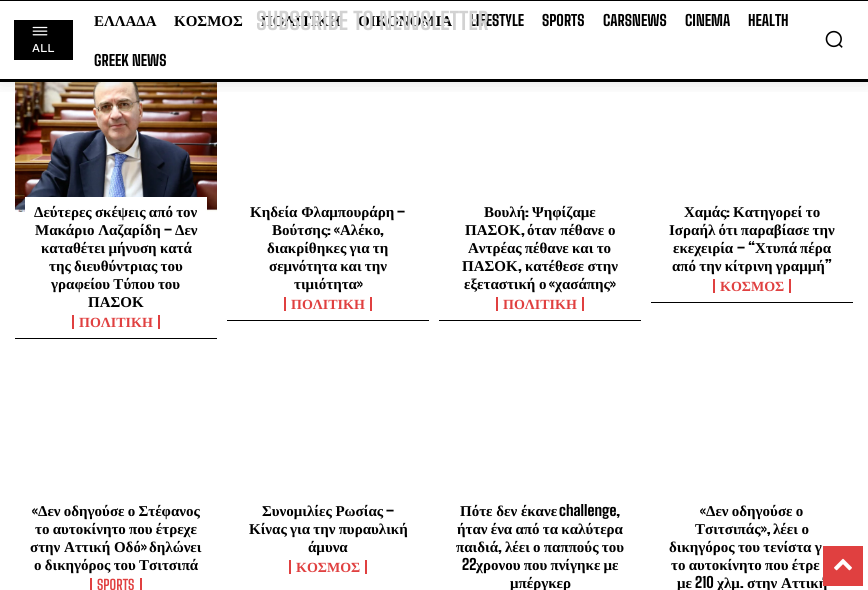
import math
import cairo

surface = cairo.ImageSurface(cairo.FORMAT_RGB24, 868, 590)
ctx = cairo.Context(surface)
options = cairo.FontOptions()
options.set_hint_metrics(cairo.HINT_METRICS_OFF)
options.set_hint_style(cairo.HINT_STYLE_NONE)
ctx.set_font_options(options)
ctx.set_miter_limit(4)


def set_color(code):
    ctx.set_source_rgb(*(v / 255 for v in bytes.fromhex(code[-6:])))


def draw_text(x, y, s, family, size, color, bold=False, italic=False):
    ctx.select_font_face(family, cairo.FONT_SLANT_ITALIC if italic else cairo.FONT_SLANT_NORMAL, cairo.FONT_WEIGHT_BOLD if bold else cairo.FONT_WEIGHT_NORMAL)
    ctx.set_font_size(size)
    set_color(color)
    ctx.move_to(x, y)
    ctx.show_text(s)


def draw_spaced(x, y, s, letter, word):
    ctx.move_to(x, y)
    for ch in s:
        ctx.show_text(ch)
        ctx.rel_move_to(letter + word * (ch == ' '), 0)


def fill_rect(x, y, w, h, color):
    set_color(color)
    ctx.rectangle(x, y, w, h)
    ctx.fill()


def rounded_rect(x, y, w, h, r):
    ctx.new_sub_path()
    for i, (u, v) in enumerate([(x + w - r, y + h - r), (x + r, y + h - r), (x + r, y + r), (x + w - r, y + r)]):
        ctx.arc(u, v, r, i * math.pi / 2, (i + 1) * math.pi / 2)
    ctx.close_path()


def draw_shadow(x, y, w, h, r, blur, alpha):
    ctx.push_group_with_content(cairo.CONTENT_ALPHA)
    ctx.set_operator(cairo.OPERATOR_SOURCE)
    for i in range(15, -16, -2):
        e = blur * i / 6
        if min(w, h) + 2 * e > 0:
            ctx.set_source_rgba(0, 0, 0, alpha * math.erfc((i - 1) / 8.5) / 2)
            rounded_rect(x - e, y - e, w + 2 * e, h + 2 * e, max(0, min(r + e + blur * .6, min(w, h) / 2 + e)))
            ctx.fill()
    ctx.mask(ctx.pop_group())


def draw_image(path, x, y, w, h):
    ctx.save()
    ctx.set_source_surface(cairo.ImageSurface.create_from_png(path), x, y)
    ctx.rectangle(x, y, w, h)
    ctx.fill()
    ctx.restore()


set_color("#ffffff")
ctx.paint()
fill_rect(0, 0, 868, 1, "#000000")
fill_rect(0, 79, 868, 3, "#000000")
fill_rect(14, 20, 59, 40, "#000000")
draw_image("assets/img1.png", 32, 26, 16, 10)
draw_image("assets/img3.png", 15, 82, 202, 130)
ctx.save()
ctx.rectangle(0, 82, 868, 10)
ctx.clip()
set_color("#000000")
draw_shadow(0, 0, 868, 82, 0, 10, 0.12)
ctx.restore()
draw_text(261, 26, "ΠΟΛΙΤΙΚΗ", "Liberation Serif", 15, "#000000", bold=True)
draw_text(358, 26, "ΟΙΚΟΝΟΜΙΑ", "Liberation Serif", 15, "#000000", bold=True)
draw_text(470, 26, "LIFESTYLE", "Big Shoulders Text ExtraBold", 15, "#000000")
draw_text(256, 30, "SUBSCRIBE TO NEWSLETTER", "Big Shoulders Text", 24, "#d2d2d2", bold=True)
draw_text(32, 52, "ALL", "Work Sans Medium", 12, "#ffffff")
draw_text(94, 26, "ΕΛΛΑΔΑ", "Liberation Serif", 15, "#000000", bold=True)
draw_text(174, 26, "ΚΟΣΜΟΣ", "Liberation Serif", 15, "#000000", bold=True)
draw_text(542, 26, "SPORTS", "Big Shoulders Text ExtraBold", 15, "#000000")
draw_text(603, 26, "CARSNEWS", "Big Shoulders Text ExtraBold", 15, "#000000")
draw_text(685, 26, "CINEMA", "Big Shoulders Text ExtraBold", 15, "#000000")
draw_text(748, 26, "HEALTH", "Big Shoulders Text ExtraBold", 15, "#000000")
draw_text(94, 66, "GREEK NEWS", "Big Shoulders Text ExtraBold", 15, "#000000")
draw_image("assets/img2.png", 825, 30, 18, 18)
fill_rect(25, 197, 182, 15, "#ffffff")
ctx.select_font_face("Liberation Serif", cairo.FONT_SLANT_NORMAL, cairo.FONT_WEIGHT_BOLD)
set_color("#000000")
draw_spaced(34, 217, "Δεύτερες σκέψεις από τον", 0, -0.5)
draw_text(35, 235, "Μακάριο Λαζαρίδη", "Liberation Serif", 15, "#000000", bold=True)
draw_text(164, 235, "–", "Big Shoulders Text ExtraBold", 15, "#000000")
draw_text(175, 235, "Δεν", "Liberation Serif", 15, "#000000", bold=True)
draw_spaced(41, 253, "καταθέτει μήνυση κατά", 0, -0.5)
draw_spaced(49, 271, "της διευθύντριας του", 0, -0.5)
draw_spaced(51, 289, "γραφείου Τύπου του", 0, -0.5)
draw_text(88, 307, "ΠΑΣΟΚ", "Liberation Serif", 15, "#000000", bold=True)
fill_rect(158, 315, 2, 14, "#e04040")
fill_rect(72, 315, 2, 14, "#e04040")
draw_text(79, 327, "ΠΟΛΙΤΙΚΗ", "Liberation Serif", 14, "#e04040", bold=True)
fill_rect(15, 338, 202, 1, "#000000")
draw_text(250, 217, "Κηδεία Φλαμπουράρη", "Liberation Serif", 15, "#000000", bold=True)
draw_text(397, 217, "–", "Big Shoulders Text ExtraBold", 15, "#000000")
draw_text(272, 235, "Βούτσης", "Liberation Serif", 15, "#000000", bold=True)
draw_text(327, 235, ": «", "Big Shoulders Text ExtraBold", 15, "#000000")
draw_text(340, 235, "Αλέκο", "Liberation Serif", 15, "#000000", bold=True)
draw_text(380, 235, ",", "Big Shoulders Text ExtraBold", 15, "#000000")
ctx.select_font_face("Liberation Serif", cairo.FONT_SLANT_NORMAL, cairo.FONT_WEIGHT_BOLD)
draw_spaced(267, 253, "διακρίθηκες για τη", 0, -0.5)
draw_spaced(269, 271, "σεμνότητα και την", 0, -0.5)
draw_text(294, 289, "τιμιότητα", "Liberation Serif", 15, "#000000", bold=True)
draw_text(357, 289, "»", "Big Shoulders Text ExtraBold", 15, "#000000")
fill_rect(370, 297, 2, 14, "#e04040")
fill_rect(284, 297, 2, 14, "#e04040")
draw_text(291, 309, "ΠΟΛΙΤΙΚΗ", "Liberation Serif", 14, "#e04040", bold=True)
fill_rect(227, 320, 202, 1, "#000000")
draw_text(484, 217, "Βουλή", "Liberation Serif", 15, "#000000", bold=True)
draw_text(525, 217, ":", "Big Shoulders Text ExtraBold", 15, "#000000")
draw_text(532, 217, "Ψηφίζαμε", "Liberation Serif", 15, "#000000", bold=True)
draw_text(465, 235, "ΠΑΣΟΚ", "Liberation Serif", 15, "#000000", bold=True)
draw_text(521, 235, ",", "Big Shoulders Text ExtraBold", 15, "#000000")
draw_text(527, 235, "όταν πέθανε ο", "Liberation Serif", 15, "#000000", bold=True)
draw_spaced(468, 253, "Αντρέας πέθανε και το", 0, -0.5)
draw_text(462, 271, "ΠΑΣΟΚ", "Liberation Serif", 15, "#000000", bold=True)
draw_text(518, 271, ",", "Big Shoulders Text ExtraBold", 15, "#000000")
draw_text(525, 271, "κατέθεσε στην", "Liberation Serif", 15, "#000000", bold=True)
draw_text(464, 289, "εξεταστική ο", "Liberation Serif", 15, "#000000", bold=True)
draw_text(549, 289, "«", "Big Shoulders Text ExtraBold", 15, "#000000")
draw_text(555, 289, "χασάπης", "Liberation Serif", 15, "#000000", bold=True)
draw_text(610, 289, "»", "Big Shoulders Text ExtraBold", 15, "#000000")
fill_rect(582, 297, 2, 14, "#e04040")
fill_rect(496, 297, 2, 14, "#e04040")
draw_text(503, 309, "ΠΟΛΙΤΙΚΗ", "Liberation Serif", 14, "#e04040", bold=True)
fill_rect(439, 320, 202, 1, "#000000")
draw_text(684, 217, "Χαμάς", "Liberation Serif", 15, "#000000", bold=True)
draw_text(726, 217, ":", "Big Shoulders Text ExtraBold", 15, "#000000")
draw_text(733, 217, "Κατηγορεί το", "Liberation Serif", 15, "#000000", bold=True)
draw_spaced(669, 235, "Ισραήλ ότι παραβίασε την", 0, -0.5)
draw_text(673, 253, "εκεχειρία", "Liberation Serif", 15, "#000000", bold=True)
draw_text(737, 253, "– “", "Big Shoulders Text ExtraBold", 15, "#000000")
draw_text(755, 253, "Χτυπά", "Liberation Serif", 15, "#000000", bold=True)
draw_text(800, 253, "πέρα", "Liberation Serif", 15, "#000000", bold=True)
draw_spaced(672, 271, "από την κίτρινη γραμμή", 0, -0.5)
draw_text(825, 271, "”", "Big Shoulders Text ExtraBold", 15, "#000000")
fill_rect(789, 279, 2, 14, "#e04040")
fill_rect(713, 279, 2, 14, "#e04040")
draw_text(720, 291, "ΚΟΣΜΟΣ", "Liberation Serif", 14, "#e04040", bold=True)
fill_rect(651, 302, 202, 1, "#000000")
draw_text(32, 516, "«", "Big Shoulders Text ExtraBold", 15, "#000000")
ctx.select_font_face("Liberation Serif", cairo.FONT_SLANT_NORMAL, cairo.FONT_WEIGHT_BOLD)
draw_spaced(38, 516, "Δεν οδηγούσε ο Στέφανος", 0, -0.5)
draw_spaced(35, 534, "το αυτοκίνητο που έτρεχε", 0, -0.5)
draw_text(30, 552, "στην Αττική Οδό", "Liberation Serif", 15, "#000000", bold=True)
draw_text(141, 552, "»", "Big Shoulders Text ExtraBold", 15, "#000000")
draw_text(149, 552, "δηλώνει", "Liberation Serif", 15, "#000000", bold=True)
draw_spaced(34, 570, "ο δικηγόρος του Τσιτσιπά", 0, -0.5)
fill_rect(140, 578, 2, 12, "#e04040")
fill_rect(90, 578, 2, 12, "#e04040")
draw_text(97, 590, "SPORTS", "Big Shoulders Text", 14, "#e04040", bold=True)
draw_text(262, 516, "Συνομιλίες Ρωσίας", "Liberation Serif", 15, "#000000", bold=True)
draw_text(386, 516, "–", "Big Shoulders Text ExtraBold", 15, "#000000")
ctx.select_font_face("Liberation Serif", cairo.FONT_SLANT_NORMAL, cairo.FONT_WEIGHT_BOLD)
draw_spaced(249, 534, "Κίνας για την πυραυλική", 0, -0.5)
draw_text(308, 552, "άμυνα", "Liberation Serif", 15, "#000000", bold=True)
fill_rect(365, 560, 2, 14, "#e04040")
fill_rect(289, 560, 2, 14, "#e04040")
draw_text(296, 572, "ΚΟΣΜΟΣ", "Liberation Serif", 14, "#e04040", bold=True)
draw_text(460, 516, "Πότε δεν έκανε", "Liberation Serif", 15, "#000000", bold=True)
draw_text(559, 516, "challenge,", "Big Shoulders Text ExtraBold", 15, "#000000")
ctx.select_font_face("Liberation Serif", cairo.FONT_SLANT_NORMAL, cairo.FONT_WEIGHT_BOLD)
draw_spaced(457, 534, "ήταν ένα από τα καλύτερα", 0, -0.5)
draw_text(456, 552, "παιδιά", "Liberation Serif", 15, "#000000", bold=True)
draw_text(498, 552, ",", "Big Shoulders Text ExtraBold", 15, "#000000")
ctx.select_font_face("Liberation Serif", cairo.FONT_SLANT_NORMAL, cairo.FONT_WEIGHT_BOLD)
draw_spaced(505, 552, "λέει ο παππούς του", 0, -0.5)
draw_text(462, 570, "22", "Big Shoulders Text ExtraBold", 15, "#000000")
ctx.select_font_face("Liberation Serif", cairo.FONT_SLANT_NORMAL, cairo.FONT_WEIGHT_BOLD)
draw_spaced(476, 570, "χρονου που πνίγηκε με", 0, -0.5)
draw_text(510, 588, "μπέργκερ", "Liberation Serif", 15, "#000000", bold=True)
draw_text(700, 516, "«", "Big Shoulders Text ExtraBold", 15, "#000000")
ctx.select_font_face("Liberation Serif", cairo.FONT_SLANT_NORMAL, cairo.FONT_WEIGHT_BOLD)
draw_spaced(706, 516, "Δεν οδηγούσε ο", 0, -0.5)
draw_text(695, 534, "Τσιτσιπάς", "Liberation Serif", 15, "#000000", bold=True)
draw_text(761, 534, "»,", "Big Shoulders Text ExtraBold", 15, "#000000")
draw_text(773, 534, "λέει ο", "Liberation Serif", 15, "#000000", bold=True)
draw_spaced(669, 552, "δικηγόρος του τενίστα γ", 0, -0.5)
draw_spaced(671, 570, "το αυτοκίνητο που έτρε", 0, -0.5)
draw_text(677, 588, "με", "Liberation Serif", 15, "#000000", bold=True)
draw_text(695, 588, "210", "Big Shoulders Text ExtraBold", 15, "#000000")
draw_text(717, 588, "χλμ", "Liberation Serif", 15, "#000000", bold=True)
draw_text(740, 588, ".", "Big Shoulders Text ExtraBold", 15, "#000000")
draw_text(747, 588, "στην Αττική", "Liberation Serif", 15, "#000000", bold=True)
fill_rect(823, 546, 40, 40, "#e04040")
draw_image("assets/img4.png", 834, 558, 18, 13)
surface.write_to_png("output.png")
